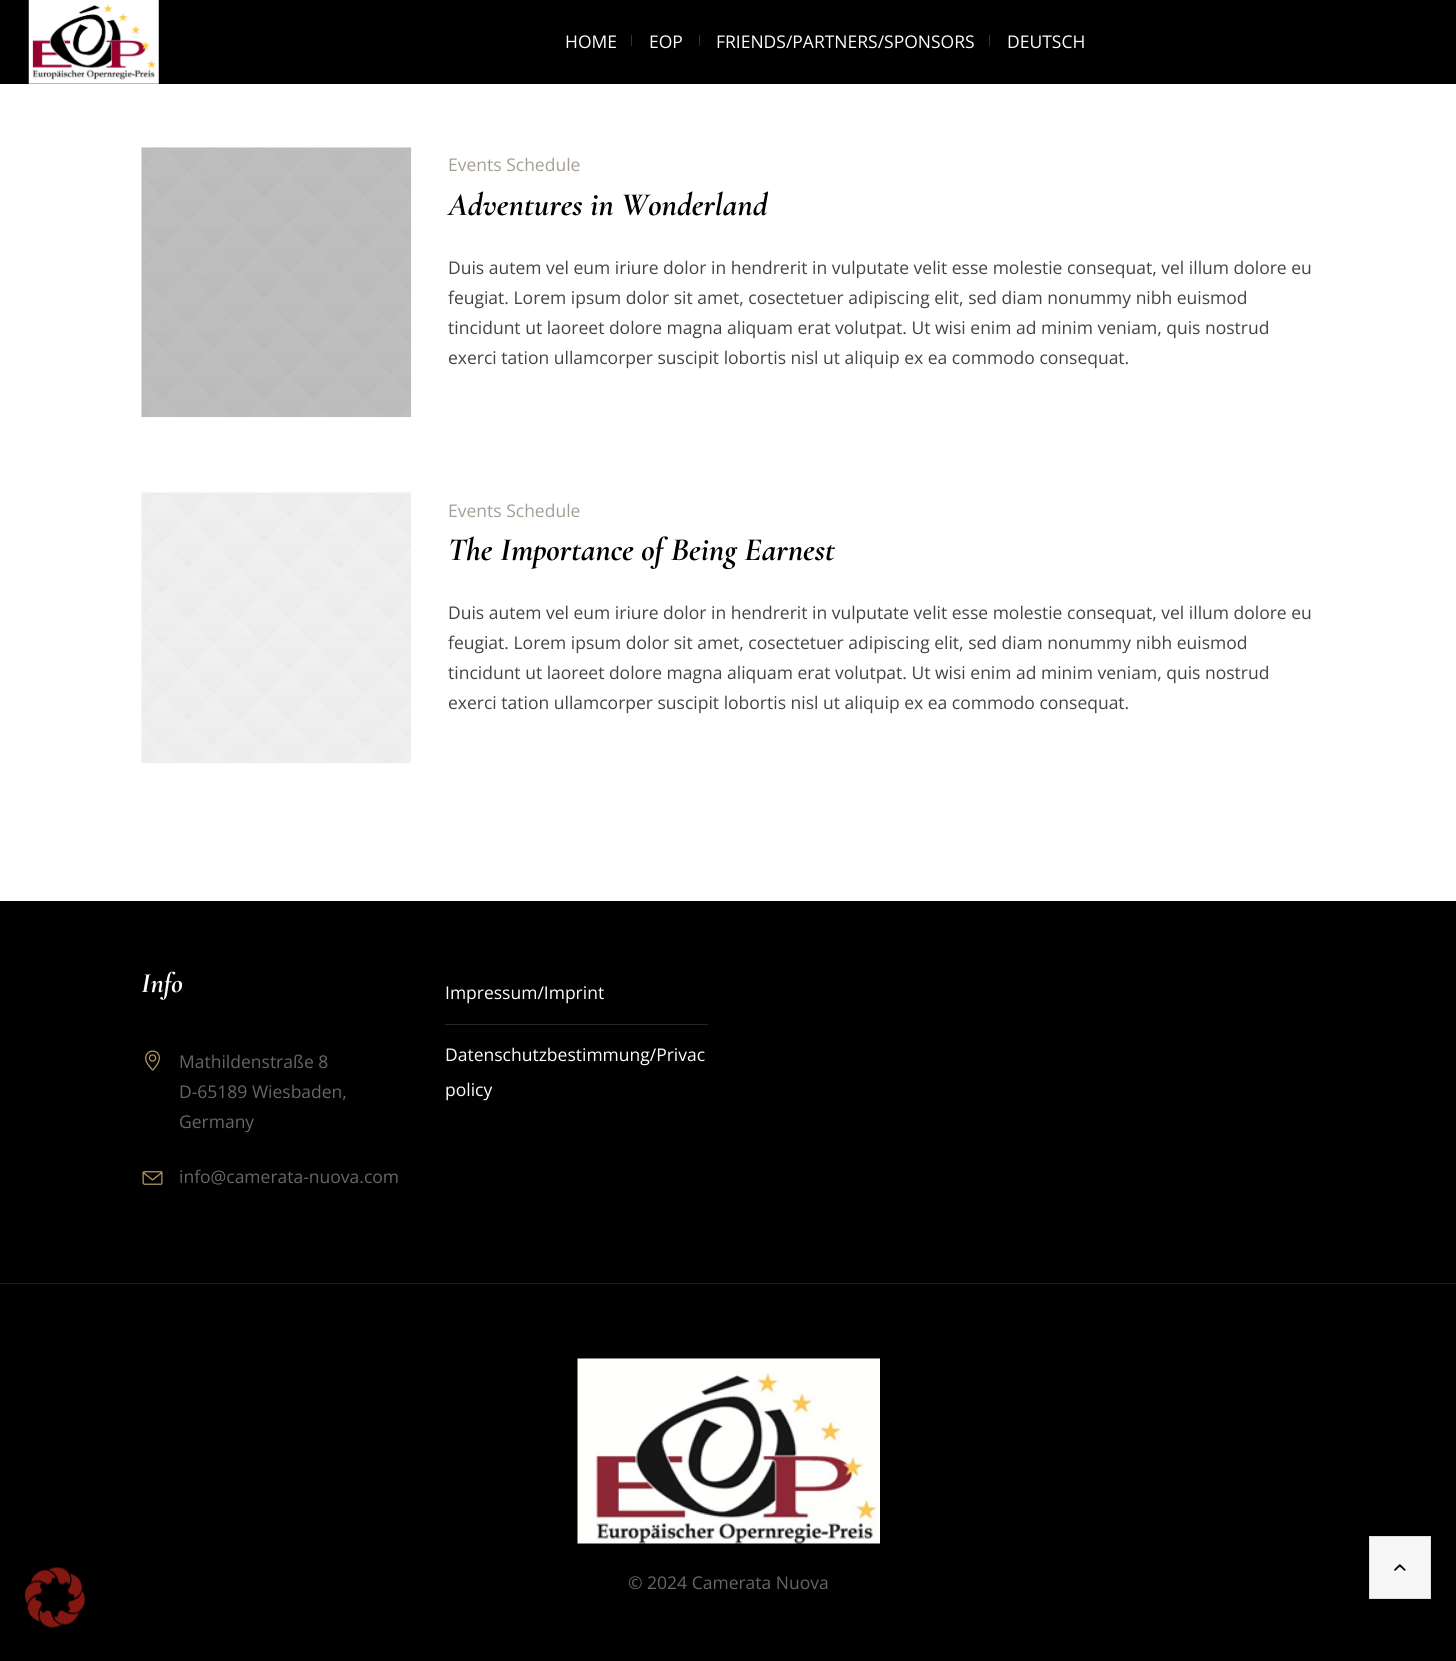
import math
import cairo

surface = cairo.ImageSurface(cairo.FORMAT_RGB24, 1456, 1661)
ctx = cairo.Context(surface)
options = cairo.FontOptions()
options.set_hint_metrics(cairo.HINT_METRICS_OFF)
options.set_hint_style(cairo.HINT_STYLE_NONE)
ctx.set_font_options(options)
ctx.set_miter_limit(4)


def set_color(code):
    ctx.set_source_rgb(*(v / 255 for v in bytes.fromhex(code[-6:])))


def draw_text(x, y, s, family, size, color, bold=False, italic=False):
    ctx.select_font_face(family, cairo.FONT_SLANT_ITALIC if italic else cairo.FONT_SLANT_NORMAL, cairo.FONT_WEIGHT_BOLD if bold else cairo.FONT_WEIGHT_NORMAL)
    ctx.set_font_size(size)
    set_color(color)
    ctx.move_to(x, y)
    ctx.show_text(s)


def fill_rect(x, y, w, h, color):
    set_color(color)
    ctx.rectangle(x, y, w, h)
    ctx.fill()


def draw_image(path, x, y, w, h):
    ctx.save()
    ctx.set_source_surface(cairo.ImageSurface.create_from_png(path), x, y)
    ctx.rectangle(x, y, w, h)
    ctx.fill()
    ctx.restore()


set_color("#ffffff")
ctx.paint()
fill_rect(0, 0, 1456, 84, "#000000")
draw_image("assets/img1.png", 28, 0, 131, 84)
draw_text(565, 48, "HOME", "Open Sans", 17.5, "#ffffff")
fill_rect(631, 35, 1, 11, "#333333")
draw_text(649, 48, "EOP", "Open Sans", 17.5, "#ffffff")
fill_rect(699, 35, 1, 11, "#333333")
draw_text(716, 48, "FRIENDS/PARTNERS/SPONSORS", "Open Sans", 17.5, "#ffffff")
fill_rect(989, 35, 1, 11, "#333333")
draw_text(1007, 48, "DEUTSCH", "Open Sans", 17.5, "#ffffff")
draw_image("assets/img2.png", 141, 147, 271, 271)
draw_text(448, 171, "Events Schedule", "Open Sans", 17.5, "#a49f95")
draw_text(448, 215, "Adventures in Wonderland", "Cormorant Garamond Light", 32.5, "#000000", italic=True)
draw_text(448, 274, "Duis autem vel eum iriure dolor in hendrerit in vulputate velit esse molestie consequat, vel illum dolore eu", "Open Sans", 17.5, "#444444")
draw_text(448, 304, "feugiat. Lorem ipsum dolor sit amet, cosectetuer adipiscing elit, sed diam nonummy nibh euismod", "Open Sans", 17.5, "#444444")
draw_text(448, 334, "tincidunt ut laoreet dolore magna aliquam erat volutpat. Ut wisi enim ad minim veniam, quis nostrud", "Open Sans", 17.5, "#444444")
draw_text(448, 364, "exerci tation ullamcorper suscipit lobortis nisl ut aliquip ex ea commodo consequat.", "Open Sans", 17.5, "#444444")
draw_image("assets/img3.png", 141, 492, 270, 272)
draw_text(448, 517, "Events Schedule", "Open Sans", 17.5, "#a49f95")
draw_text(448, 560, "The Importance of Being Earnest", "Cormorant Garamond Light", 32.5, "#000000", italic=True)
draw_text(448, 619, "Duis autem vel eum iriure dolor in hendrerit in vulputate velit esse molestie consequat, vel illum dolore eu", "Open Sans", 17.5, "#444444")
draw_text(448, 649, "feugiat. Lorem ipsum dolor sit amet, cosectetuer adipiscing elit, sed diam nonummy nibh euismod", "Open Sans", 17.5, "#444444")
draw_text(448, 679, "tincidunt ut laoreet dolore magna aliquam erat volutpat. Ut wisi enim ad minim veniam, quis nostrud", "Open Sans", 17.5, "#444444")
draw_text(448, 709, "exerci tation ullamcorper suscipit lobortis nisl ut aliquip ex ea commodo consequat.", "Open Sans", 17.5, "#444444")
fill_rect(0, 901, 1456, 382, "#000000")
draw_text(141, 992, "Info", "Cormorant Garamond Light", 28, "#ffffff", italic=True)
draw_image("assets/img4.png", 145, 1050, 15, 21)
draw_text(179, 1068, "Mathildenstraße 8", "Open Sans", 17.5, "#666666")
draw_text(179, 1098, "D-65189 Wiesbaden,", "Open Sans", 17.5, "#666666")
draw_text(179, 1128, "Germany", "Open Sans", 17.5, "#666666")
draw_image("assets/img5.png", 142, 1171, 21, 14)
draw_text(179, 1183, "info@camerata-nuova.com", "Open Sans", 17.5, "#666666")
fill_rect(445, 1024, 263, 1, "#262626")
draw_text(445, 999, "Impressum/Imprint", "Open Sans", 17.5, "#ffffff")
draw_text(445, 1061, "Datenschutzbestimmung/Privac", "Open Sans", 17.5, "#ffffff")
draw_text(445, 1096, "policy", "Open Sans", 17.5, "#ffffff")
fill_rect(0, 1284, 1456, 377, "#000000")
set_color("#f7f7f7")
ctx.rectangle(1369.5, 1536.5, 61, 62)
ctx.fill_preserve()
set_color("#dedede")
ctx.set_line_width(1)
ctx.stroke()
draw_image("assets/img6.png", 1394, 1564, 12, 7)
fill_rect(0, 1283, 1456, 1, "#1a1a1a")
draw_image("assets/img7.png", 577, 1358, 303, 186)
draw_text(628, 1589, "© 2024 Camerata Nuova", "Open Sans", 17.5, "#666666")
draw_image("assets/img8.png", 25, 1567, 60, 61)
surface.write_to_png("output.png")
